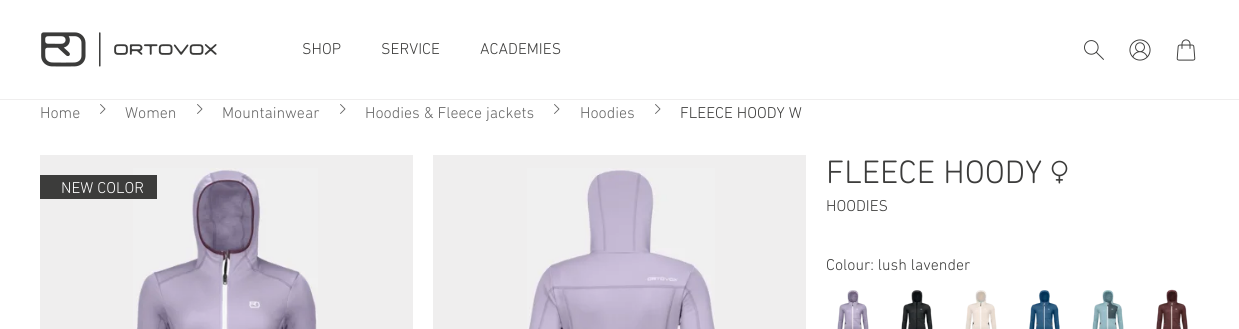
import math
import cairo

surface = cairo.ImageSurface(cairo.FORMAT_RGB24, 1239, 329)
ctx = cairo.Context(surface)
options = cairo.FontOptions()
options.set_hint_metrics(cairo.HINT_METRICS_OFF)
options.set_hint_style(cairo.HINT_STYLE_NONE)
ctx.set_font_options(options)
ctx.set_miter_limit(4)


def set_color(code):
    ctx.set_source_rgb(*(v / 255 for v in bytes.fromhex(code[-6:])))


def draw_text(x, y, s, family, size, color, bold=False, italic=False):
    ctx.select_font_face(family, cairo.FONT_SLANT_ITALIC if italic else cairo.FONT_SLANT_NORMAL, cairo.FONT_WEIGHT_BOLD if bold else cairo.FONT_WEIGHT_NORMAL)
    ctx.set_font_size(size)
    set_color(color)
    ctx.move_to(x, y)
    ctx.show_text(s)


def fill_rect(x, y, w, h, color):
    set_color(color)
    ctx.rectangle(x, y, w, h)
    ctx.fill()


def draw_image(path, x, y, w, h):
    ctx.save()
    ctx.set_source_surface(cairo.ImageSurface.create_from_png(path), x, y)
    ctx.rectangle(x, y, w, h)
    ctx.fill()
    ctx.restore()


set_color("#ffffff")
ctx.paint()
fill_rect(0, 99, 1239, 1, "#efeeee")
draw_image("assets/img1.png", 41, 32, 176, 35)
draw_text(302, 54, "SHOP", "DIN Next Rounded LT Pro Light", 16, "#3c3c3b")
draw_text(381, 54, "SERVICE", "DIN Next Rounded LT Pro Light", 16, "#3c3c3b")
draw_text(480, 54, "ACADEMIES", "DIN Next Rounded LT Pro Light", 16, "#3c3c3b")
draw_image("assets/img2.png", 1084, 40, 20, 20)
draw_image("assets/img3.png", 1129, 39, 22, 22)
draw_image("assets/img4.png", 1176, 39, 20, 22)
draw_text(40, 118, "Home", "DIN Next Rounded LT Pro Light", 16, "#666666")
draw_image("assets/img5.png", 100, 104, 6, 10)
draw_text(125, 118, "Women", "DIN Next Rounded LT Pro Light", 16, "#666666")
draw_image("assets/img5.png", 197, 104, 6, 10)
draw_text(222, 118, "Mountainwear", "DIN Next Rounded LT Pro Light", 16, "#666666")
draw_image("assets/img5.png", 340, 104, 6, 10)
draw_text(365, 118, "Hoodies & Fleece jackets", "DIN Next Rounded LT Pro Light", 16, "#666666")
draw_image("assets/img5.png", 554, 104, 6, 10)
draw_text(580, 118, "Hoodies", "DIN Next Rounded LT Pro Light", 16, "#666666")
draw_image("assets/img5.png", 655, 104, 6, 10)
draw_text(680, 118, "FLEECE HOODY W", "DIN Next Rounded LT Pro Light", 16, "#3c3c3b")
fill_rect(40, 155, 373, 174, "#efeeee")
draw_image("assets/img6.png", 133, 168, 185, 161)
fill_rect(433, 155, 373, 174, "#efeeee")
draw_image("assets/img7.png", 527, 168, 188, 161)
fill_rect(40, 175, 117, 24, "#3c3c3b")
draw_text(61, 193, "NEW COLOR", "DIN Next Rounded LT Pro Light", 16, "#ffffff")
draw_text(826, 183, "FLEECE HOODY", "DIN Next Rounded LT Pro Light", 33, "#3c3c3b")
draw_image("assets/img8.png", 1051, 160, 17, 24)
draw_text(826, 211, "HOODIES", "DIN Next Rounded LT Pro Light", 16, "#3c3c3b")
draw_text(826, 270, "Colour: lush lavender", "DIN Next Rounded LT Pro Light", 16, "#3c3c3b")
draw_image("assets/img9.png", 837, 290, 32, 39)
draw_image("assets/img10.png", 901, 290, 32, 39)
draw_image("assets/img11.png", 965, 290, 32, 39)
draw_image("assets/img12.png", 1029, 290, 31, 39)
draw_image("assets/img13.png", 1092, 290, 32, 39)
draw_image("assets/img14.png", 1156, 289, 32, 40)
surface.write_to_png("output.png")
